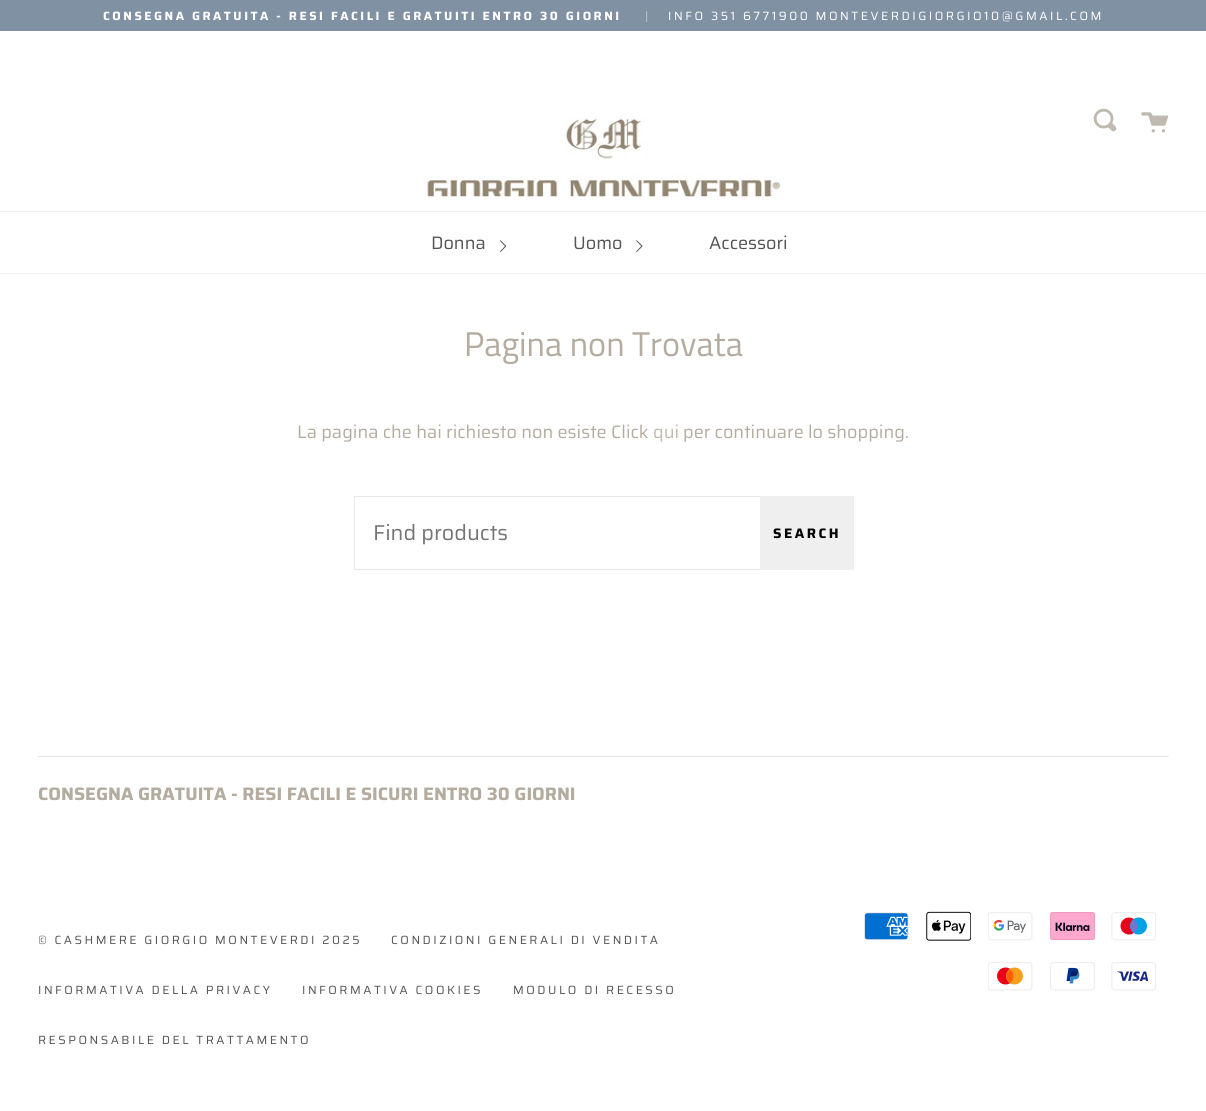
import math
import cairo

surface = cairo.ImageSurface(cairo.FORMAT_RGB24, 1206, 1111)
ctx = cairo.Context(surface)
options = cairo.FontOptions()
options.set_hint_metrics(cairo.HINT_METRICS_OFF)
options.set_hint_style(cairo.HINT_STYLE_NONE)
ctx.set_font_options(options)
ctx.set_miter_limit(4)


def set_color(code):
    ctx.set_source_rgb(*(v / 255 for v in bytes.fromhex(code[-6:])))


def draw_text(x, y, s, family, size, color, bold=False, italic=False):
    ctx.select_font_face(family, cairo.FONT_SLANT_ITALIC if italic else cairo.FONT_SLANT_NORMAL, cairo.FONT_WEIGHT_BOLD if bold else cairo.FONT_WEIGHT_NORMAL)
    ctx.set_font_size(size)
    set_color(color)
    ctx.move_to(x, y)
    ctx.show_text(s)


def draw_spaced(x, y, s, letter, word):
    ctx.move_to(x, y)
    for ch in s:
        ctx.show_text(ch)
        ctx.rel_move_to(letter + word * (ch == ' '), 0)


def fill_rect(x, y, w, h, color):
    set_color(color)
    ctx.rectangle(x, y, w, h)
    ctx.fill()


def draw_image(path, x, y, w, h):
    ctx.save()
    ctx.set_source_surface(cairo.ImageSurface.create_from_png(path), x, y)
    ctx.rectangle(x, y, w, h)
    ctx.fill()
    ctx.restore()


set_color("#ffffff")
ctx.paint()
fill_rect(0, 0, 1206, 31, "#8191a4")
ctx.select_font_face("Saira", cairo.FONT_SLANT_NORMAL, cairo.FONT_WEIGHT_BOLD)
ctx.set_font_size(12)
set_color("#ffffff")
draw_spaced(103, 20, "CONSEGNA GRATUITA - RESI FACILI E GRATUITI ENTRO 30 GIORNI", 2.5, 0)
ctx.select_font_face("Saira")
set_color("#c0c8d2")
draw_spaced(645, 20, "|", 2.5, 0)
set_color("#ffffff")
draw_spaced(668, 20, "INFO 351 6771900 MONTEVERDIGIORGIO10@GMAIL.COM", 2.5, 0)
draw_image("assets/img1.png", 425, 117, 356, 80)
draw_image("assets/img2.png", 1093, 108, 24, 24)
draw_image("assets/img3.png", 1141, 112, 28, 21)
fill_rect(0, 211, 1206, 1, "#f0f0f0")
fill_rect(0, 273, 1206, 1, "#f0f0f0")
draw_text(431, 249, "Donna", "Saira", 18.05, "#545454")
draw_image("assets/img4.png", 500, 240, 6, 12)
draw_text(573, 249, "Uomo", "Saira", 18.05, "#545454")
draw_image("assets/img5.png", 636, 240, 7, 12)
draw_text(709, 249, "Accessori", "Saira", 18.05, "#545454")
draw_text(464, 356, "Pagina non Trovata", "Titillium Web", 34.25, "#b4ac9f")
draw_text(297, 438, "La pagina che hai richiesto non esiste Click", "Saira", 18.05, "#b4ac9f")
draw_text(653, 438, "qui", "Saira", 18.05, "#bfb9af")
draw_text(683, 438, "per continuare lo shopping.", "Saira", 18.05, "#b4ac9f")
ctx.rectangle(354.5, 496.5, 499, 73)
set_color("#e7e7e7")
ctx.set_line_width(1)
ctx.stroke()
draw_text(373, 540, "Find products", "Saira", 21.5, "#757575")
fill_rect(760, 496, 94, 74, "#efefef")
ctx.select_font_face("Saira", cairo.FONT_SLANT_NORMAL, cairo.FONT_WEIGHT_BOLD)
ctx.set_font_size(13.75)
set_color("#000000")
draw_spaced(773, 538, "SEARCH", 2.5, 0)
fill_rect(38, 756, 1131, 1, "#e6e6e6")
draw_text(38, 800, "CONSEGNA GRATUITA - RESI FACILI E SICURI ENTRO 30 GIORNI", "Saira", 18.05, "#b4ac9f", bold=True)
ctx.select_font_face("Saira")
ctx.set_font_size(11.9)
set_color("#545454")
draw_spaced(38, 944, "© CASHMERE GIORGIO MONTEVERDI 2025", 2.5, 0)
draw_spaced(391, 944, "CONDIZIONI GENERALI DI VENDITA", 2.5, 0)
draw_spaced(38, 994, "INFORMATIVA DELLA PRIVACY", 2.5, 0)
draw_spaced(302, 994, "INFORMATIVA COOKIES", 2.5, 0)
draw_spaced(513, 994, "MODULO DI RECESSO", 2.5, 0)
draw_spaced(38, 1044, "RESPONSABILE DEL TRATTAMENTO", 2.5, 0)
draw_image("assets/img6.png", 864, 912, 45, 29)
draw_image("assets/img7.png", 926, 911, 45, 30)
draw_image("assets/img8.png", 988, 912, 45, 29)
draw_image("assets/img9.png", 1050, 912, 45, 28)
draw_image("assets/img10.png", 1111, 912, 45, 29)
draw_image("assets/img11.png", 988, 962, 45, 29)
draw_image("assets/img12.png", 1050, 962, 45, 29)
draw_image("assets/img13.png", 1111, 962, 45, 29)
surface.write_to_png("output.png")
